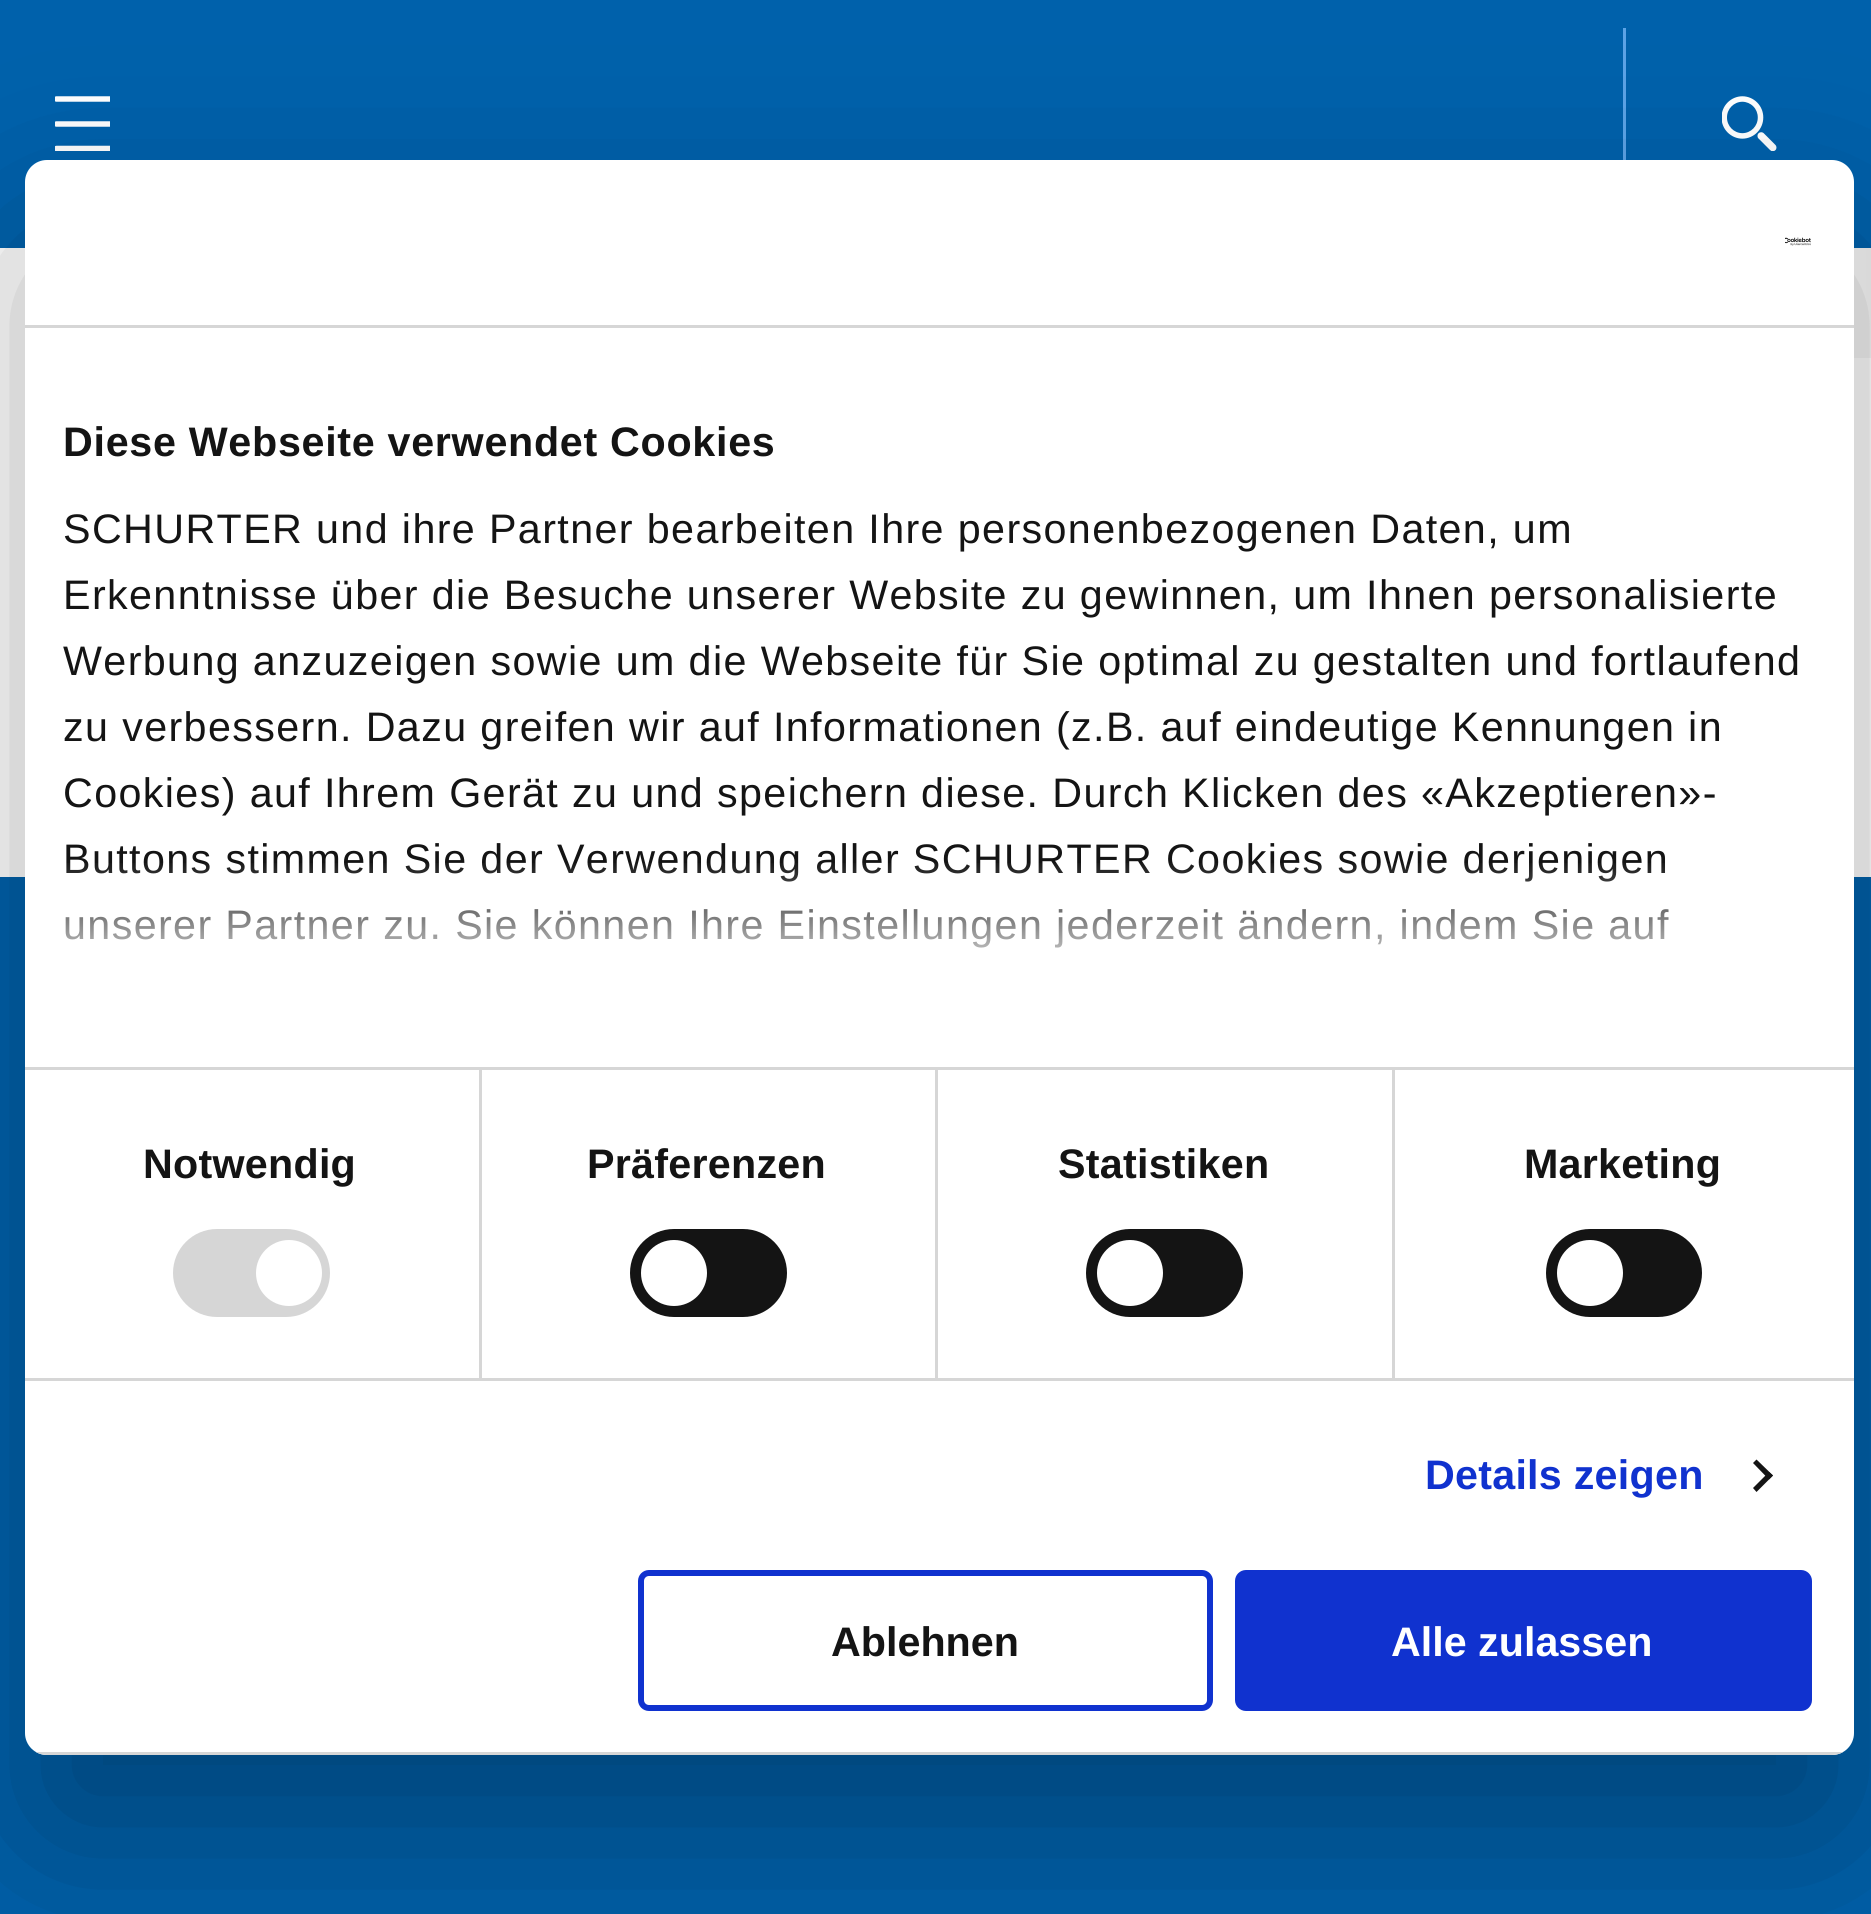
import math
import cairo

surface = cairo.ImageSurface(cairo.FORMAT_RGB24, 1871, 1914)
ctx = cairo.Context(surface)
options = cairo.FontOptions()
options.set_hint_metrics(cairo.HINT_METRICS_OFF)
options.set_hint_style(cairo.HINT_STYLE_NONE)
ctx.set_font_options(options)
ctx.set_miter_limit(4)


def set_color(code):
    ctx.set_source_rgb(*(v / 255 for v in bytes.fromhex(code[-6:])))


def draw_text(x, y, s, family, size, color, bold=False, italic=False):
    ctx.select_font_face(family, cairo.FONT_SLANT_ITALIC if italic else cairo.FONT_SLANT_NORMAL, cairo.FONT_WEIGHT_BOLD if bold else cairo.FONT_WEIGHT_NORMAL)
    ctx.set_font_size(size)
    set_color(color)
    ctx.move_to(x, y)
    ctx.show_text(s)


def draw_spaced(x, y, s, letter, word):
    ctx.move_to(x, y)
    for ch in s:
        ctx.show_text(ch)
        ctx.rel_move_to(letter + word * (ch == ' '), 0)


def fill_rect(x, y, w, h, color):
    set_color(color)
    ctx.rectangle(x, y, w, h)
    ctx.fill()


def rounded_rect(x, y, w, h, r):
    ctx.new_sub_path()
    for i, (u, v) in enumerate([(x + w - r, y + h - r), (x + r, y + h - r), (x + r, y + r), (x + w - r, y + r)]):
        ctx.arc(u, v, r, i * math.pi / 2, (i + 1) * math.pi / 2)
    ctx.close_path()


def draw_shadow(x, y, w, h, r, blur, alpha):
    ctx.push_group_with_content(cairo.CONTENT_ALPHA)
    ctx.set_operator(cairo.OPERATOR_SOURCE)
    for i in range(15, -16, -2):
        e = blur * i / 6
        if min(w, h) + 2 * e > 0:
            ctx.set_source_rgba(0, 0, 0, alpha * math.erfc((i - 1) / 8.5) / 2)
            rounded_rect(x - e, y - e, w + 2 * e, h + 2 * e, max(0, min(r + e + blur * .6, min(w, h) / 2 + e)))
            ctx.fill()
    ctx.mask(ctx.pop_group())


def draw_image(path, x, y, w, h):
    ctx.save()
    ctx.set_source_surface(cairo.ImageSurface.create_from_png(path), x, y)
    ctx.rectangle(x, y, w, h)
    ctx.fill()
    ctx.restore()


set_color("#ffffff")
ctx.paint()
fill_rect(0, 0, 1871, 248, "#0061ab")
ctx.save()
ctx.rectangle(55, 96, 55, 55)
ctx.clip()
ctx.new_path()
ctx.move_to(56.5, 99)
ctx.line_to(110, 99)
ctx.move_to(56.5, 124)
ctx.line_to(110, 124)
ctx.move_to(56.5, 148.5)
ctx.line_to(110, 148.5)
set_color("#ffffff")
ctx.set_line_width(5.5)
ctx.set_line_cap(cairo.LINE_CAP_ROUND)
ctx.stroke()
ctx.restore()
fill_rect(1623, 28, 3, 132, "#5ca3e6")
draw_image("assets/img1.png", 1722, 96, 55, 55)
gradient = cairo.LinearGradient(1708, 303, 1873, 303)
gradient.add_color_stop_rgba(0, 1, 1, 1, 1)
gradient.add_color_stop_rgba(1, 0.957, 0.957, 0.957, 1)
ctx.set_source(gradient)
ctx.rectangle(1854, 248, 17, 110)
ctx.fill()
fill_rect(0, 877, 1871, 1037, "#0061ab")
ctx.save()
ctx.set_fill_rule(cairo.FILL_RULE_EVEN_ODD)
ctx.new_path()
ctx.move_to(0, 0)
ctx.line_to(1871, 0)
ctx.line_to(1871, 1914)
ctx.line_to(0, 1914)
ctx.close_path()
ctx.move_to(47, 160)
ctx.line_to(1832, 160)
ctx.curve_to(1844, 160, 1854, 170, 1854, 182)
ctx.line_to(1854, 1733)
ctx.curve_to(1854, 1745, 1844, 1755, 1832, 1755)
ctx.line_to(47, 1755)
ctx.curve_to(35, 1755, 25, 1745, 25, 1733)
ctx.line_to(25, 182)
ctx.curve_to(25, 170, 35, 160, 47, 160)
ctx.close_path()
ctx.clip()
set_color("#000000")
draw_shadow(25, 248, 1829, 1595, 22, 93.5, 0.3)
ctx.restore()
set_color("#ffffff")
rounded_rect(25, 160, 1829, 1595, 22)
ctx.fill()
fill_rect(25, 325, 1829, 3, "#d6d6d6")
draw_image("assets/img2.png", 1785, 237, 26, 9)
fill_rect(25, 1067, 1829, 3, "#d6d6d6")
ctx.select_font_face("Liberation Sans", cairo.FONT_SLANT_NORMAL, cairo.FONT_WEIGHT_BOLD)
ctx.set_font_size(41.25)
set_color("#141414")
draw_spaced(63, 456, "Diese Webseite verwendet Cookies", 0.7, 0)
ctx.select_font_face("Liberation Sans")
draw_spaced(63, 543, "SCHURTER und ihre Partner bearbeiten Ihre personenbezogenen Daten, um", 1.38, 0)
draw_spaced(63, 609, "Erkenntnisse über die Besuche unserer Website zu gewinnen, um Ihnen personalisierte", 1.38, 0)
draw_spaced(63, 675, "Werbung anzuzeigen sowie um die Webseite für Sie optimal zu gestalten und fortlaufend", 1.38, 0)
draw_spaced(63, 741, "zu verbessern. Dazu greifen wir auf Informationen (z.B. auf eindeutige Kennungen in", 1.38, 0)
draw_spaced(63, 807, "Cookies) auf Ihrem Gerät zu und speichern diese. Durch Klicken des «Akzeptieren»-", 1.38, 0)
draw_spaced(63, 873, "Buttons stimmen Sie der Verwendung aller SCHURTER Cookies sowie derjenigen", 1.38, 0)
draw_spaced(63, 939, "unserer Partner zu. Sie können Ihre Einstellungen jederzeit ändern, indem Sie auf", 1.38, 0)
gradient = cairo.LinearGradient(920, 1067, 920, 860)
gradient.add_color_stop_rgba(0, 1, 1, 1, 1)
gradient.add_color_stop_rgba(0.5, 1, 1, 1, 0.8)
gradient.add_color_stop_rgba(1, 1, 1, 1, 0)
ctx.set_source(gradient)
ctx.rectangle(65, 863, 1604, 85)
ctx.fill()
fill_rect(25, 1378, 1829, 3, "#d6d6d6")
fill_rect(479, 1070, 3, 308, "#d6d6d6")
ctx.select_font_face("Liberation Sans", cairo.FONT_SLANT_NORMAL, cairo.FONT_WEIGHT_BOLD)
set_color("#141414")
draw_spaced(143, 1178, "Notwendig", 0.25, 0)
set_color("#d6d6d6")
rounded_rect(173, 1229, 157, 88, 44)
ctx.fill()
set_color("#ffffff")
ctx.arc(289, 1273, 33, 0, 2 * math.pi)
ctx.fill()
fill_rect(935, 1070, 3, 308, "#d6d6d6")
set_color("#141414")
draw_spaced(587, 1178, "Präferenzen", 0.25, 0)
rounded_rect(630, 1229, 157, 88, 44)
ctx.fill()
set_color("#ffffff")
ctx.arc(674, 1273, 33, 0, 2 * math.pi)
ctx.fill()
fill_rect(1392, 1070, 3, 308, "#d6d6d6")
set_color("#141414")
draw_spaced(1058, 1178, "Statistiken", 0.25, 0)
rounded_rect(1086, 1229, 157, 88, 44)
ctx.fill()
set_color("#ffffff")
ctx.arc(1130, 1273, 33, 0, 2 * math.pi)
ctx.fill()
set_color("#141414")
draw_spaced(1524, 1178, "Marketing", 0.25, 0)
rounded_rect(1546, 1229, 156, 88, 44)
ctx.fill()
set_color("#ffffff")
ctx.arc(1590, 1273, 33, 0, 2 * math.pi)
ctx.fill()
set_color("#1032cf")
draw_spaced(1425, 1489, "Details zeigen", 0.25, 0)
set_color("#141414")
ctx.new_path()
ctx.move_to(1756.5, 1459.5)
ctx.line_to(1773, 1475.5)
ctx.line_to(1769, 1479.5)
ctx.line_to(1753, 1463)
ctx.close_path()
ctx.fill()
ctx.new_path()
ctx.move_to(1769, 1472)
ctx.line_to(1773, 1475.5)
ctx.line_to(1756.5, 1492)
ctx.line_to(1753, 1488)
ctx.close_path()
ctx.fill()
ctx.save()
rounded_rect(25, 160, 1829, 1595, 22)
ctx.clip()
fill_rect(36, 1752, 1807, 3, "#d6d6d6")
ctx.restore()
rounded_rect(641, 1573, 569, 135, 8)
set_color("#1032cf")
ctx.set_line_width(6)
ctx.stroke()
draw_text(831, 1656, "Ablehnen", "Liberation Sans", 41.25, "#141414", bold=True)
set_color("#1032cf")
rounded_rect(1238, 1573, 571, 135, 8)
ctx.fill_preserve()
ctx.stroke()
draw_text(1391, 1656, "Alle zulassen", "Liberation Sans", 41.25, "#ffffff", bold=True)
surface.write_to_png("output.png")
